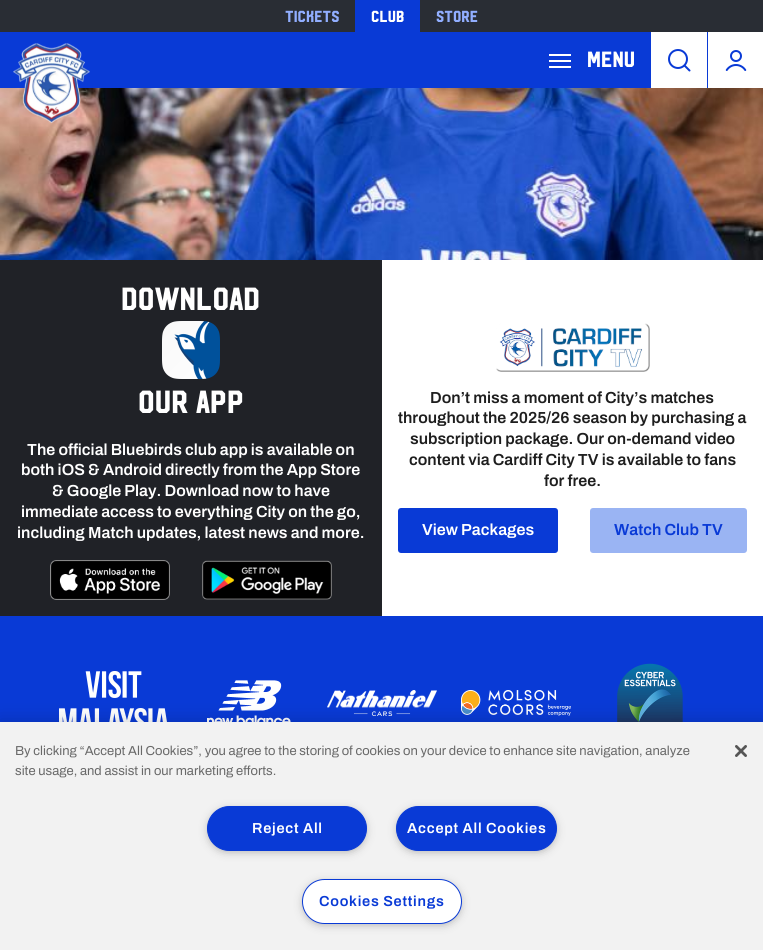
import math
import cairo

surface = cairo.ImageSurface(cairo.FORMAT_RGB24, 763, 950)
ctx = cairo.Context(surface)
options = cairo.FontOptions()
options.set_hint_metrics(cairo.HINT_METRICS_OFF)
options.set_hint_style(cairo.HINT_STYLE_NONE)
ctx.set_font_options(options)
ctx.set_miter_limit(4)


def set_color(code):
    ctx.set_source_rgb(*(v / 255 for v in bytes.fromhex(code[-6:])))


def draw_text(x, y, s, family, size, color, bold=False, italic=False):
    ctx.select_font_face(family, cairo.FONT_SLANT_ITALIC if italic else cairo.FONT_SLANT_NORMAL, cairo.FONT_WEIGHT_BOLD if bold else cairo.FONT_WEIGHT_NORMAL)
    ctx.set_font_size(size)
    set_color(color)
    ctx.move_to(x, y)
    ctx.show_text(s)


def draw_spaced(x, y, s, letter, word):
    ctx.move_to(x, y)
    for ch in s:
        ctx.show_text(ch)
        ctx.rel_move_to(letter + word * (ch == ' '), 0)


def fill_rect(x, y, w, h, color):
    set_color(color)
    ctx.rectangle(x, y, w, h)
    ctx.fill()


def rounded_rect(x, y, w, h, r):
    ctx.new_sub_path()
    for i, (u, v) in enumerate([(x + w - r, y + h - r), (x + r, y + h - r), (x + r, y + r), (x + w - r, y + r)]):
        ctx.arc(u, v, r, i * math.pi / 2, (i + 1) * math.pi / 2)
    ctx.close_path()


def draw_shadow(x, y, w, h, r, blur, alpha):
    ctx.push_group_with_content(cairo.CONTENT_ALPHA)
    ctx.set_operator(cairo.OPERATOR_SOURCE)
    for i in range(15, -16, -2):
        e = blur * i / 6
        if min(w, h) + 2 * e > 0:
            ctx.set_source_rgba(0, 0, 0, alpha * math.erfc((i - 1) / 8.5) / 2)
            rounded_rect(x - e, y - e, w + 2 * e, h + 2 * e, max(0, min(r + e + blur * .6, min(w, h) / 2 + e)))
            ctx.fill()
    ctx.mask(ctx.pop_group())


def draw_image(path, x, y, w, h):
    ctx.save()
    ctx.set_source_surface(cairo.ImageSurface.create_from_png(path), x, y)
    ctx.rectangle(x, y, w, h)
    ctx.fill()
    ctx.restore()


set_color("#093ad6")
ctx.paint()
fill_rect(0, 0, 763, 32, "#292d34")
draw_text(285, 22, "Tickets", "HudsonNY", 16, "#91aeff")
fill_rect(355, 0, 65, 32, "#093ad6")
draw_text(371, 22, "Club", "HudsonNY", 16, "#ffffff")
draw_text(436, 22, "Store", "HudsonNY", 16, "#91aeff")
draw_image("assets/img4.png", 0, 88, 763, 172)
draw_image("assets/img1.png", 13, 43, 77, 81)
fill_rect(549, 60, 22, 2, "#ffffff")
fill_rect(549, 54, 22, 2, "#ffffff")
fill_rect(549, 66, 22, 2, "#ffffff")
draw_text(587, 67, "Menu", "HudsonNY", 22, "#ffffff")
fill_rect(651, 32, 56, 56, "#ffffff")
draw_image("assets/img2.png", 668, 49, 23, 23)
fill_rect(708, 32, 55, 56, "#ffffff")
draw_image("assets/img3.png", 725, 50, 22, 21)
fill_rect(0, 260, 382, 356, "#202227")
draw_text(121, 310, "Download", "HudsonNY", 32, "#ffffff")
draw_image("assets/img5.png", 162, 321, 58, 58)
draw_text(138, 413, "our app", "HudsonNY", 32, "#ffffff")
draw_text(27, 455, "The official Bluebirds club app is available on", "Archivo SemiBold", 16, "#ffffff")
draw_text(21, 475, "both iOS & Android directly from the App Store", "Archivo SemiBold", 16, "#ffffff")
draw_text(52, 496, "& Google Play. Download now to have", "Archivo SemiBold", 16, "#ffffff")
draw_text(21, 517, "immediate access to everything City on the go,", "Archivo SemiBold", 16, "#ffffff")
draw_text(17, 538, "including Match updates, latest news and more.", "Archivo SemiBold", 16, "#ffffff")
draw_image("assets/img6.png", 50, 560, 120, 40)
draw_image("assets/img7.png", 202, 560, 130, 40)
fill_rect(382, 260, 381, 356, "#ffffff")
draw_image("assets/img8.png", 496, 323, 154, 49)
draw_text(430, 403, "Don’t miss a moment of City’s matches", "Archivo SemiBold", 16, "#1e1e1e")
draw_text(398, 423, "throughout the 2025/26 season by purchasing a", "Archivo SemiBold", 16, "#1e1e1e")
draw_text(410, 444, "subscription package. Our on-demand video", "Archivo SemiBold", 16, "#1e1e1e")
draw_text(409, 465, "content via Cardiff City TV is available to fans", "Archivo SemiBold", 16, "#1e1e1e")
draw_text(544, 486, "for free.", "Archivo SemiBold", 16, "#1e1e1e")
set_color("#093ad6")
rounded_rect(398, 508, 160, 45, 3)
ctx.fill()
draw_text(422, 535, "View Packages", "Archivo SemiBold", 16, "#ffffff")
set_color("#9ab4f3")
rounded_rect(590, 508, 157, 45, 3)
ctx.fill()
draw_text(614, 535, "Watch Club TV", "Archivo SemiBold", 16, "#093ad6")
draw_image("assets/img9.png", 59, 671, 108, 51)
draw_image("assets/img10.png", 207, 680, 84, 42)
draw_image("assets/img11.png", 327, 690, 110, 26)
draw_image("assets/img12.png", 461, 690, 110, 26)
draw_image("assets/img13.png", 617, 663, 66, 59)
set_color("#000000")
draw_shadow(0, 722, 763, 228, 0, 9, 0.2)
fill_rect(0, 722, 763, 228, "#f2f2f2")
draw_text(15, 755, "By clicking “Accept All Cookies”, you agree to the storing of cookies on your device to enhance site navigation, analyze", "Archivo", 13, "#696969")
draw_text(15, 775, "site usage, and assist in our marketing efforts.", "Archivo", 13, "#696969")
set_color("#999999")
draw_shadow(210, 811, 154, 39, 19.5, 5, 1)
set_color("#093ad6")
rounded_rect(207.5, 806.5, 159, 44, 22)
ctx.fill_preserve()
ctx.set_line_width(1)
ctx.stroke()
ctx.select_font_face("Archivo SemiBold")
ctx.set_font_size(14.5)
set_color("#ffffff")
draw_spaced(252, 833, "Reject All", 0.75, 0)
set_color("#999999")
draw_shadow(399, 811, 155, 39, 19.5, 5, 1)
set_color("#093ad6")
rounded_rect(396.5, 806.5, 160, 44, 22)
ctx.fill_preserve()
ctx.stroke()
set_color("#ffffff")
draw_spaced(407, 833, "Accept All Cookies", 0.75, 0)
set_color("#999999")
draw_shadow(305, 884, 154, 39, 19.5, 5, 1)
set_color("#ffffff")
rounded_rect(302.5, 879.5, 159, 44, 22)
ctx.fill_preserve()
set_color("#093ad6")
ctx.stroke()
draw_spaced(319, 906, "Cookies Settings", 0.75, 0)
draw_image("assets/img14.png", 735, 745, 12, 12)
surface.write_to_png("output.png")
